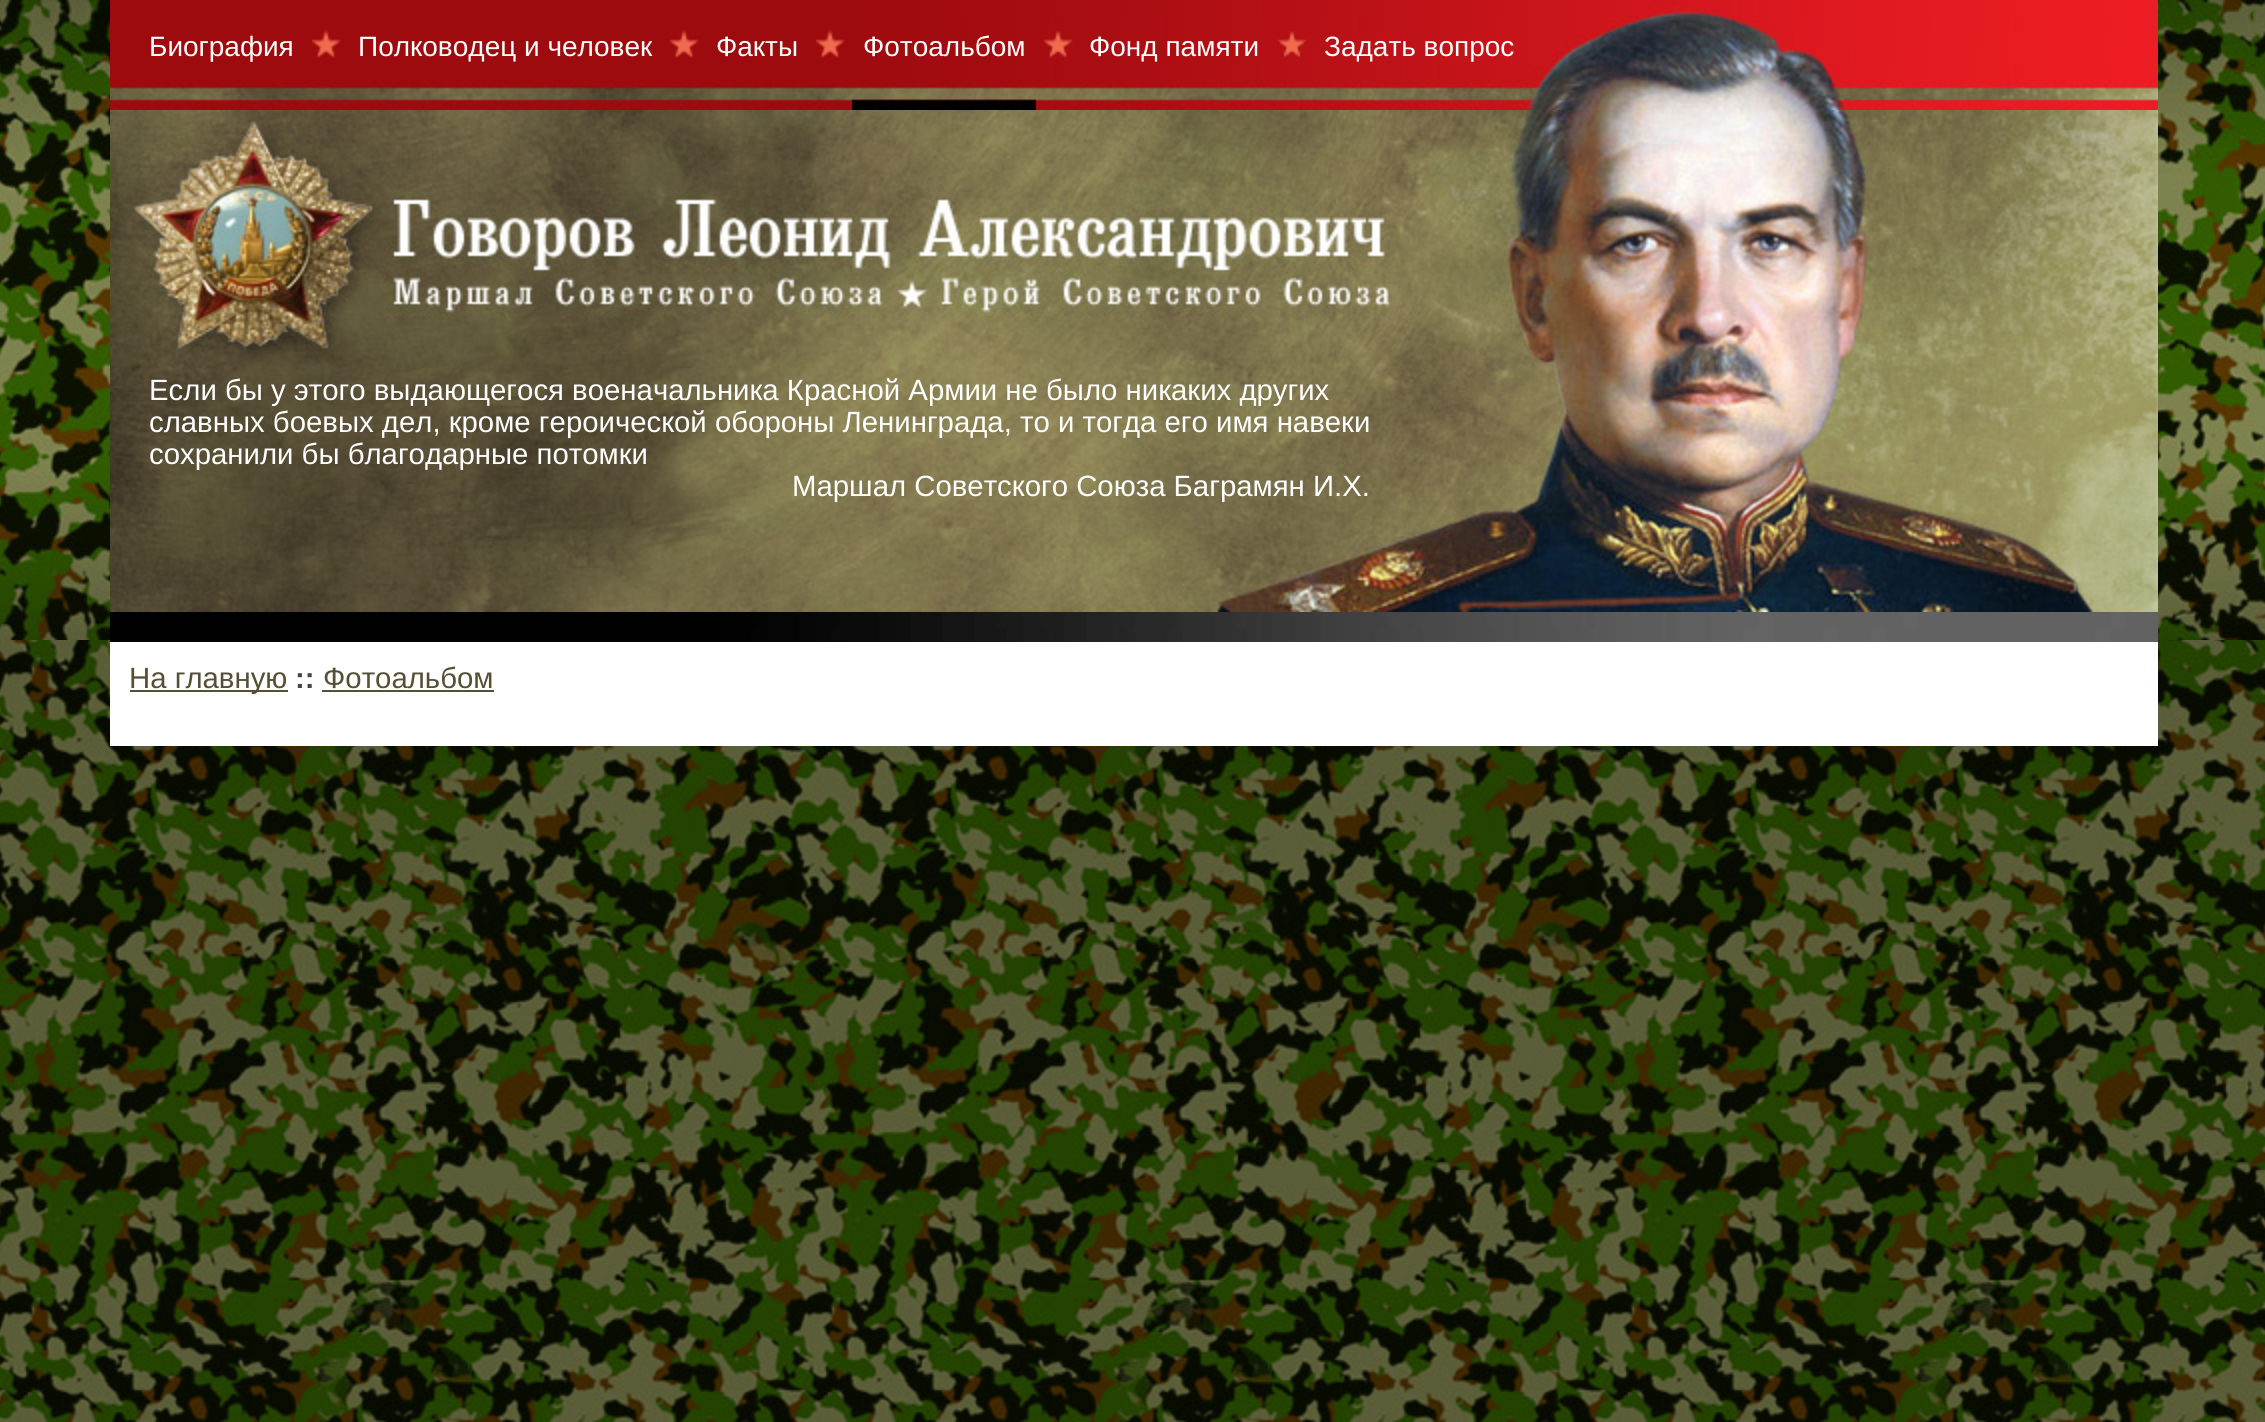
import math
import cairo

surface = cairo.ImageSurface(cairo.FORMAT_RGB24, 2265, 1422)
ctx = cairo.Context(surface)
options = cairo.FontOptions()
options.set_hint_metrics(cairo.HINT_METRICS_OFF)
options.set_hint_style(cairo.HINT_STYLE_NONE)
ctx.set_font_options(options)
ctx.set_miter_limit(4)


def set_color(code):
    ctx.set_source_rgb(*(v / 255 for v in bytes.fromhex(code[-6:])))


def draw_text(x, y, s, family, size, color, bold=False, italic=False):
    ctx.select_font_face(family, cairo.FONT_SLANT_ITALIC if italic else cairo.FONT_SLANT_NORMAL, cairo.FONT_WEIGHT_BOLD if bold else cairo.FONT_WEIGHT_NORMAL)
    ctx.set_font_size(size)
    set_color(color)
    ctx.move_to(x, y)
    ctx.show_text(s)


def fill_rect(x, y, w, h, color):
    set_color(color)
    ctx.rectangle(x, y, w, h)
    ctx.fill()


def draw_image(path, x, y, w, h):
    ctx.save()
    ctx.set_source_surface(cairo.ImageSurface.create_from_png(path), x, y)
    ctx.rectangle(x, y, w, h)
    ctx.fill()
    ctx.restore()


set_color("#ffffff")
ctx.paint()
draw_image("assets/img1.png", 0, 640, 2265, 782)
draw_image("assets/img2.png", 0, 0, 2265, 640)
draw_image("assets/img3.png", 110, 0, 2048, 110)
draw_text(149, 56, "Биография", "Liberation Sans", 28, "#ffffff")
draw_image("assets/img4.png", 312, 30, 29, 28)
draw_text(358, 56, "Полководец и человек", "Liberation Sans", 28, "#ffffff")
draw_image("assets/img4.png", 670, 30, 29, 28)
draw_text(716, 56, "Факты", "Liberation Sans", 28, "#ffffff")
draw_image("assets/img4.png", 816, 30, 29, 28)
draw_image("assets/img5.png", 852, 99, 184, 11)
draw_text(863, 56, "Фотоальбом", "Liberation Sans", 28, "#ffffff")
draw_image("assets/img6.png", 1044, 30, 29, 28)
draw_text(1089, 56, "Фонд памяти", "Liberation Sans", 28, "#ffffff")
draw_image("assets/img7.png", 1278, 30, 29, 28)
draw_text(1324, 56, "Задать вопрос", "Liberation Sans", 28, "#ffffff")
draw_image("assets/img8.png", 110, 110, 2048, 502)
draw_text(149, 400, "Если бы у этого выдающегося военачальника Красной Армии не было никаких других", "Liberation Sans", 29.35, "#ffffff")
draw_text(149, 432, "славных боевых дел, кроме героической обороны Ленинграда, то и тогда его имя навеки", "Liberation Sans", 29.35, "#ffffff")
draw_text(149, 464, "сохранили бы благодарные потомки", "Liberation Sans", 29.35, "#ffffff")
draw_text(792, 496, "Маршал Советского Союза Баграмян И.Х.", "Liberation Sans", 29.35, "#ffffff")
draw_image("assets/img9.png", 110, 612, 2048, 30)
fill_rect(110, 642, 2048, 104, "#ffffff")
fill_rect(130, 690, 158, 2, "#564e35")
draw_text(129, 688, "На главную", "Liberation Sans", 29.35, "#564e35")
draw_text(295, 688, "::", "Liberation Sans", 29.35, "#4b424b", bold=True)
draw_text(323, 688, "Фотоальбом", "Liberation Sans", 29.35, "#564e35")
fill_rect(322, 690, 172, 2, "#564e35")
surface.write_to_png("output.png")
